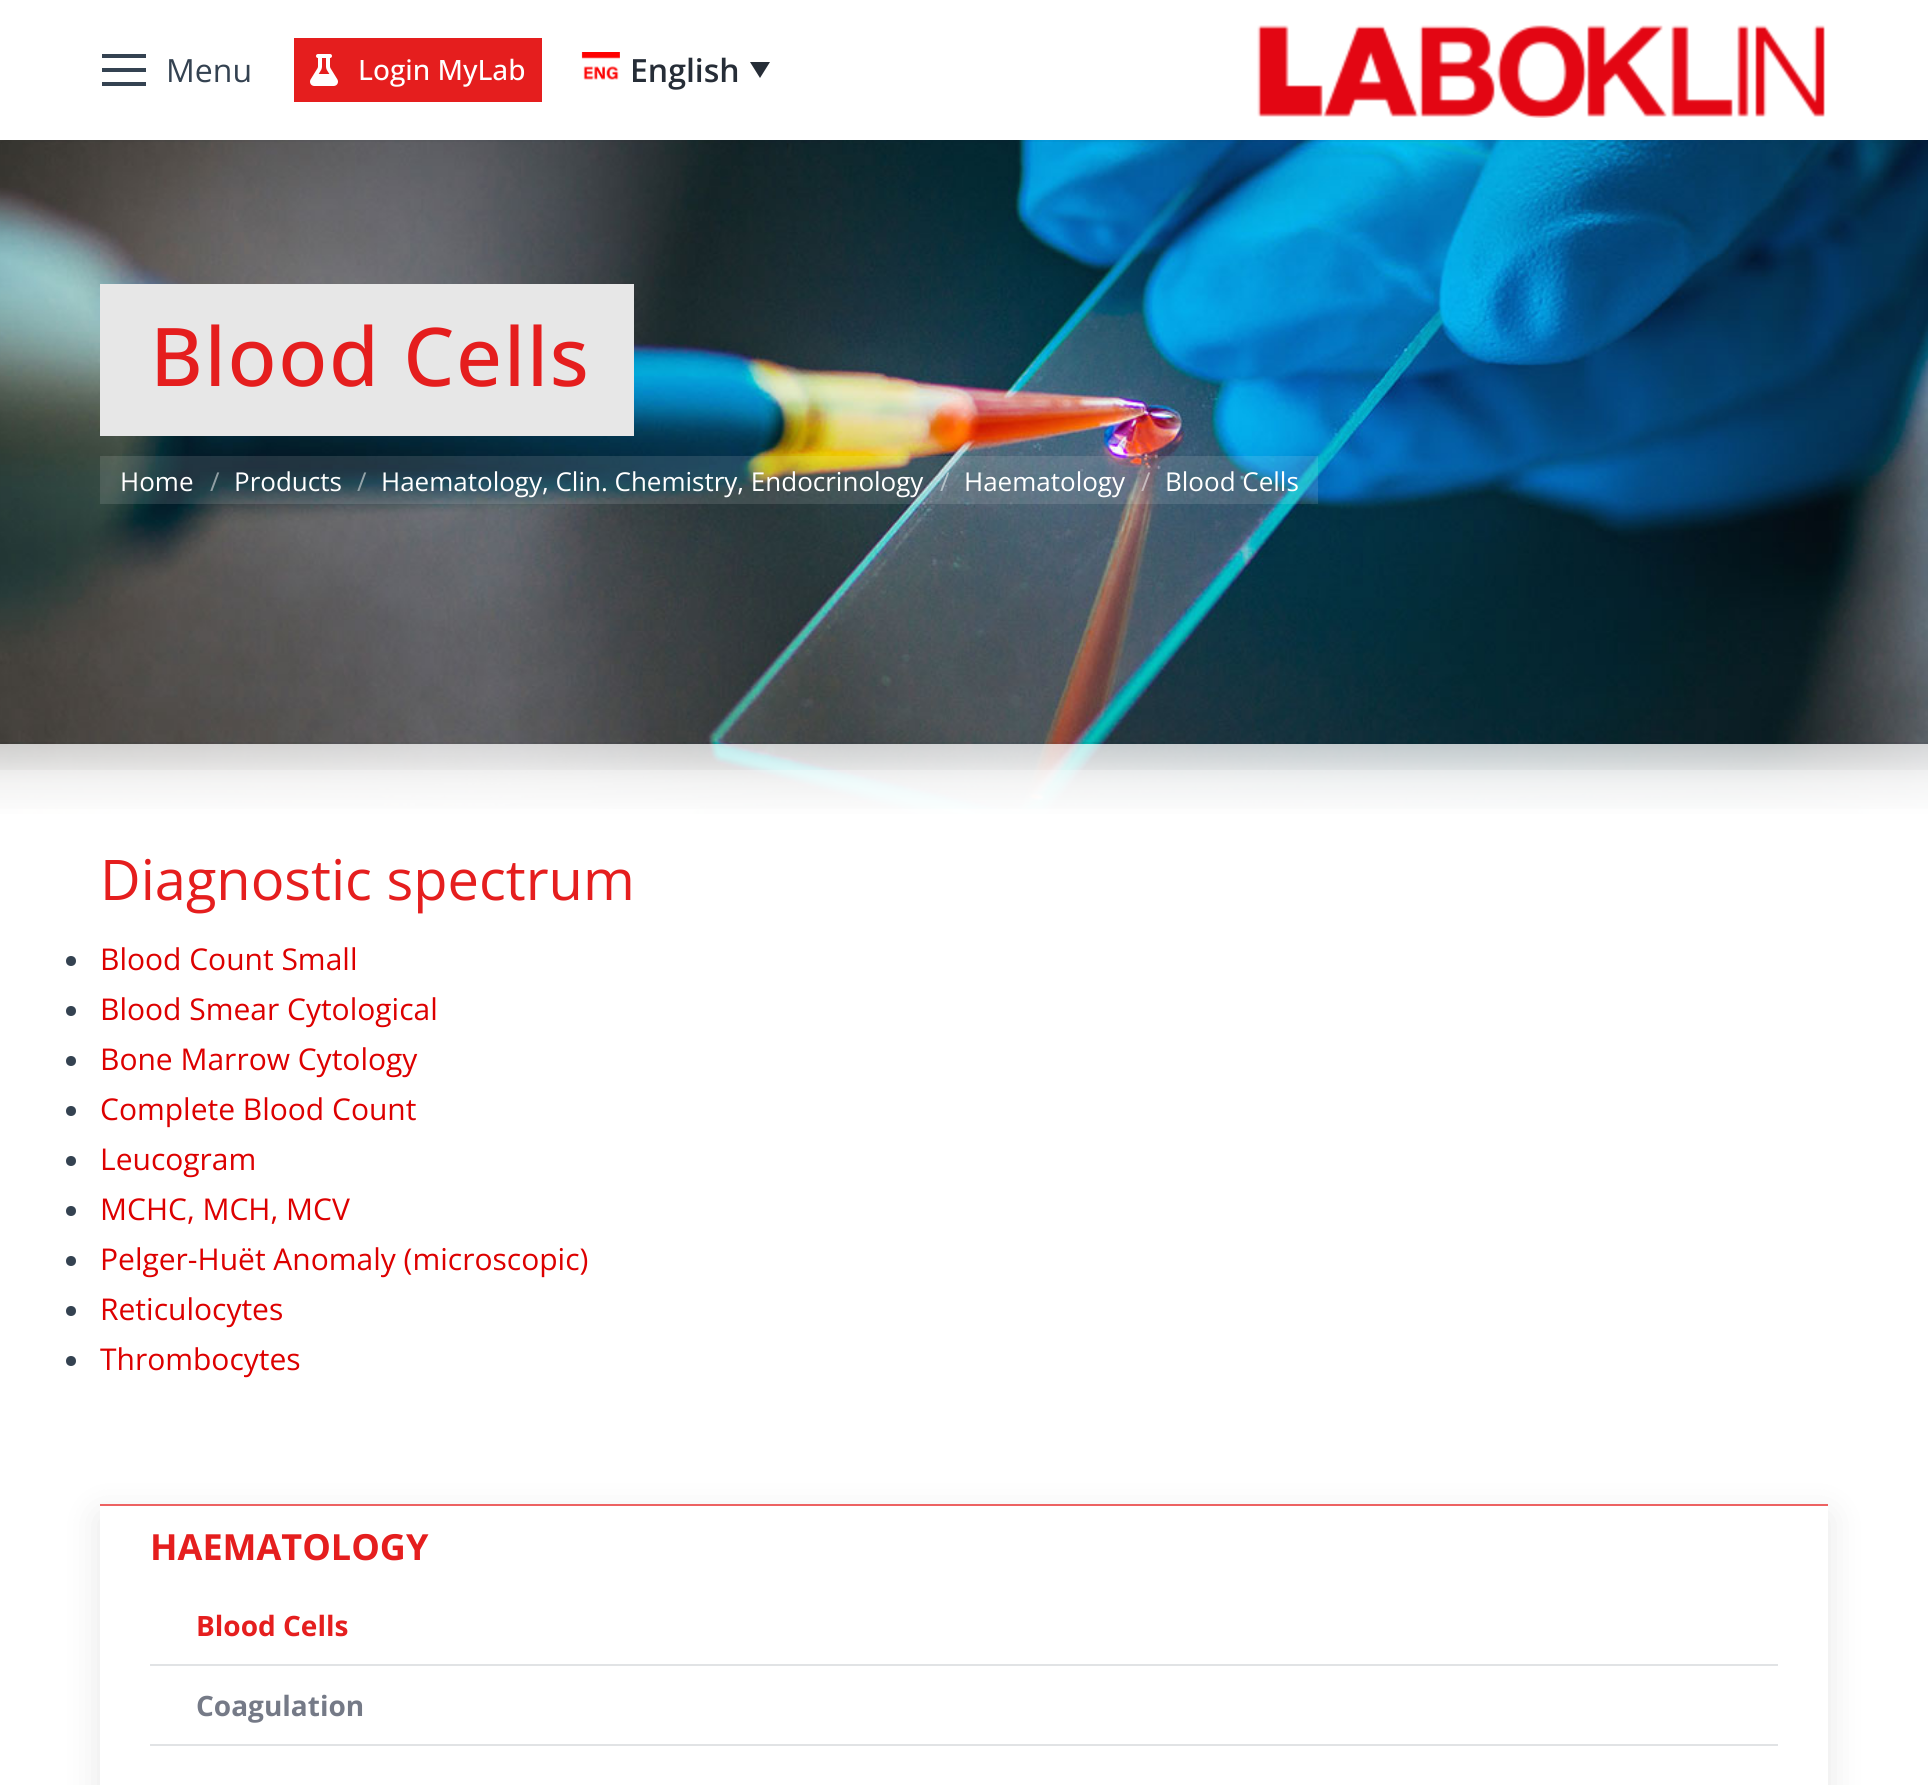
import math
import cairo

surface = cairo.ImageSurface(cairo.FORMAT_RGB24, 1928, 1785)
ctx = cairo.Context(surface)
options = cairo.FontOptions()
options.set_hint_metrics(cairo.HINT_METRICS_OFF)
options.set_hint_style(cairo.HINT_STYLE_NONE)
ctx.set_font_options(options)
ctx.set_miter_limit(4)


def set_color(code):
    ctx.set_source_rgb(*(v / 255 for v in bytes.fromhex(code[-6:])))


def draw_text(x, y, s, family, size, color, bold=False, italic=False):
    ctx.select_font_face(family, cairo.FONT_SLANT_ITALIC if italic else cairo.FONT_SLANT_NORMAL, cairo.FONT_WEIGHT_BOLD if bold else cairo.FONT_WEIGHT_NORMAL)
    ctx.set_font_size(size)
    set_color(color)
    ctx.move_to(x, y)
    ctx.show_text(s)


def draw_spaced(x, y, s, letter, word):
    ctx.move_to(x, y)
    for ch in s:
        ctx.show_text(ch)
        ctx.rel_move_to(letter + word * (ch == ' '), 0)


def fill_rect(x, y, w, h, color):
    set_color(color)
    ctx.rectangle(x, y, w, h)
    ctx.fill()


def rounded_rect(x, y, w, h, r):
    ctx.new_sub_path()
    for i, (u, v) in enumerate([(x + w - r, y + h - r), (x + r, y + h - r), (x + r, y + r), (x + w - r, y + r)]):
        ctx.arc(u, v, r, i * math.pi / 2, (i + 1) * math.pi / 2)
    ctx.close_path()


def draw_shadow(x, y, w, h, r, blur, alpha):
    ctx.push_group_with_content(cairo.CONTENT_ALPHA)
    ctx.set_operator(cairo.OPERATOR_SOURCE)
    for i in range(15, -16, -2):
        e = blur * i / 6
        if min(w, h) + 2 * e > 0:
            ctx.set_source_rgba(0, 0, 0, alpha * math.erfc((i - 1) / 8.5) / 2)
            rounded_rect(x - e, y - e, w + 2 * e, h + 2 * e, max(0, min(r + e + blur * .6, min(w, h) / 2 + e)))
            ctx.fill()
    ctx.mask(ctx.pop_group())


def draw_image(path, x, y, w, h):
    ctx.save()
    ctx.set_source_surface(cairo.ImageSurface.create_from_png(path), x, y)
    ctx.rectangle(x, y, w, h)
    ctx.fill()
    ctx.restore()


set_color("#ffffff")
ctx.paint()
draw_image("assets/img4.png", 0, 140, 1928, 674)
ctx.set_source_rgba(0.02, 0.149, 0.224, 0.05)
ctx.rectangle(34, 140, 1650, 2)
ctx.fill()
fill_rect(102, 54, 44, 4, "#344251")
fill_rect(102, 68, 44, 4, "#344251")
fill_rect(102, 82, 44, 4, "#344251")
draw_text(166, 82, "Menu", "Open Sans", 32, "#344251")
fill_rect(294, 38, 248, 64, "#e51e1e")
draw_image("assets/img1.png", 310, 54, 28, 32)
draw_text(358, 80, "Login MyLab", "Open Sans Medium", 28, "#ffffff")
draw_image("assets/img2.png", 581, 52, 39, 28)
draw_text(630, 82, "English", "Open Sans SemiBold", 32, "#262d37")
ctx.new_path()
ctx.move_to(750, 62)
ctx.line_to(770, 62)
ctx.line_to(760, 78)
ctx.close_path()
ctx.fill()
draw_image("assets/img3.png", 1257, 25, 568, 93)
fill_rect(100, 284, 534, 152, "#e7e7e7")
ctx.select_font_face("Open Sans Medium")
ctx.set_font_size(81)
set_color("#e51e1e")
draw_spaced(150, 386, "Blood Cells", 1.6, 0)
ctx.set_source_rgba(1, 1, 1, 0.12)
ctx.rectangle(100, 456, 1218, 48)
ctx.fill()
draw_text(120, 491, "Home", "Open Sans", 26, "#ffffff")
draw_text(210, 491, "/", "Open Sans", 26, "#909ea3")
draw_text(234, 491, "Products", "Open Sans", 26, "#ffffff")
draw_text(357, 491, "/", "Open Sans", 26, "#93a3a9")
draw_text(381, 491, "Haematology, Clin. Chemistry, Endocrinology", "Open Sans", 26, "#ffffff")
draw_text(940, 491, "/", "Open Sans", 26, "#b2c0c7")
draw_text(964, 491, "Haematology", "Open Sans", 26, "#ffffff")
draw_text(1141, 491, "/", "Open Sans", 26, "#c5babe")
draw_text(1165, 491, "Blood Cells", "Open Sans", 26, "#ffffff")
ctx.set_source_rgba(0.02, 0.149, 0.224, 0.05)
ctx.rectangle(0, 742, 1928, 2)
ctx.fill()
gradient = cairo.LinearGradient(964, 744, 964, 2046)
gradient.add_color_stop_rgba(0, 1, 1, 1, 0.75)
gradient.add_color_stop_rgba(0.01, 1, 1, 1, 0.8)
gradient.add_color_stop_rgba(0.02, 1, 1, 1, 0.86)
gradient.add_color_stop_rgba(0.02, 1, 1, 1, 0.9)
gradient.add_color_stop_rgba(0.03, 1, 1, 1, 0.94)
gradient.add_color_stop_rgba(0.05, 1, 1, 1, 0.98)
gradient.add_color_stop_rgba(0.05, 1, 1, 1, 0.99)
gradient.add_color_stop_rgba(0.06, 1, 1, 1, 1)
ctx.set_source(gradient)
ctx.rectangle(0, 744, 1928, 70)
ctx.fill()
draw_text(100, 900, "Diagnostic spectrum", "Open Sans", 56, "#e51e1e")
set_color("#344251")
ctx.new_path()
ctx.arc(71, 961, 5, 0, 2 * math.pi)
ctx.fill()
draw_text(100, 970, "Blood Count Small", "Open Sans", 30, "#dd0000")
set_color("#344251")
ctx.new_path()
ctx.arc(71, 1011, 5, 0, 2 * math.pi)
ctx.fill()
draw_text(100, 1020, "Blood Smear Cytological", "Open Sans", 30, "#dd0000")
set_color("#344251")
ctx.new_path()
ctx.arc(71, 1061, 5, 0, 2 * math.pi)
ctx.fill()
draw_text(100, 1070, "Bone Marrow Cytology", "Open Sans", 30, "#dd0000")
set_color("#344251")
ctx.new_path()
ctx.arc(71, 1111, 5, 0, 2 * math.pi)
ctx.fill()
draw_text(100, 1120, "Complete Blood Count", "Open Sans", 30, "#dd0000")
set_color("#344251")
ctx.new_path()
ctx.arc(71, 1161, 5, 0, 2 * math.pi)
ctx.fill()
draw_text(100, 1170, "Leucogram", "Open Sans", 30, "#dd0000")
set_color("#344251")
ctx.new_path()
ctx.arc(71, 1211, 5, 0, 2 * math.pi)
ctx.fill()
draw_text(100, 1220, "MCHC, MCH, MCV", "Open Sans", 30, "#dd0000")
set_color("#344251")
ctx.new_path()
ctx.arc(71, 1261, 5, 0, 2 * math.pi)
ctx.fill()
draw_text(100, 1270, "Pelger-Huët Anomaly (microscopic)", "Open Sans", 30, "#dd0000")
set_color("#344251")
ctx.new_path()
ctx.arc(71, 1311, 5, 0, 2 * math.pi)
ctx.fill()
draw_text(100, 1320, "Reticulocytes", "Open Sans", 30, "#dd0000")
set_color("#344251")
ctx.new_path()
ctx.arc(71, 1361, 5, 0, 2 * math.pi)
ctx.fill()
draw_text(100, 1370, "Thrombocytes", "Open Sans", 30, "#dd0000")
ctx.save()
ctx.set_fill_rule(cairo.FILL_RULE_EVEN_ODD)
ctx.new_path()
ctx.move_to(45, 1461)
ctx.line_to(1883, 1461)
ctx.line_to(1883, 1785)
ctx.line_to(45, 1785)
ctx.close_path()
ctx.move_to(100, 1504)
ctx.line_to(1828, 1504)
ctx.line_to(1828, 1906)
ctx.line_to(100, 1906)
ctx.close_path()
ctx.clip()
set_color("#000000")
draw_shadow(100, 1516, 1728, 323, 0, 18, 0.1)
ctx.restore()
fill_rect(100, 1504, 1728, 2, "#ed6262")
draw_text(150, 1560, "HAEMATOLOGY", "Open Sans", 36, "#e51e1e", bold=True)
draw_text(196, 1636, "Blood Cells", "Open Sans", 28, "#e51e1e", bold=True)
fill_rect(150, 1664, 1628, 2, "#e1e3e5")
draw_text(196, 1716, "Coagulation", "Open Sans", 28, "#757a87", bold=True)
fill_rect(150, 1744, 1628, 2, "#e1e3e5")
surface.write_to_png("output.png")
